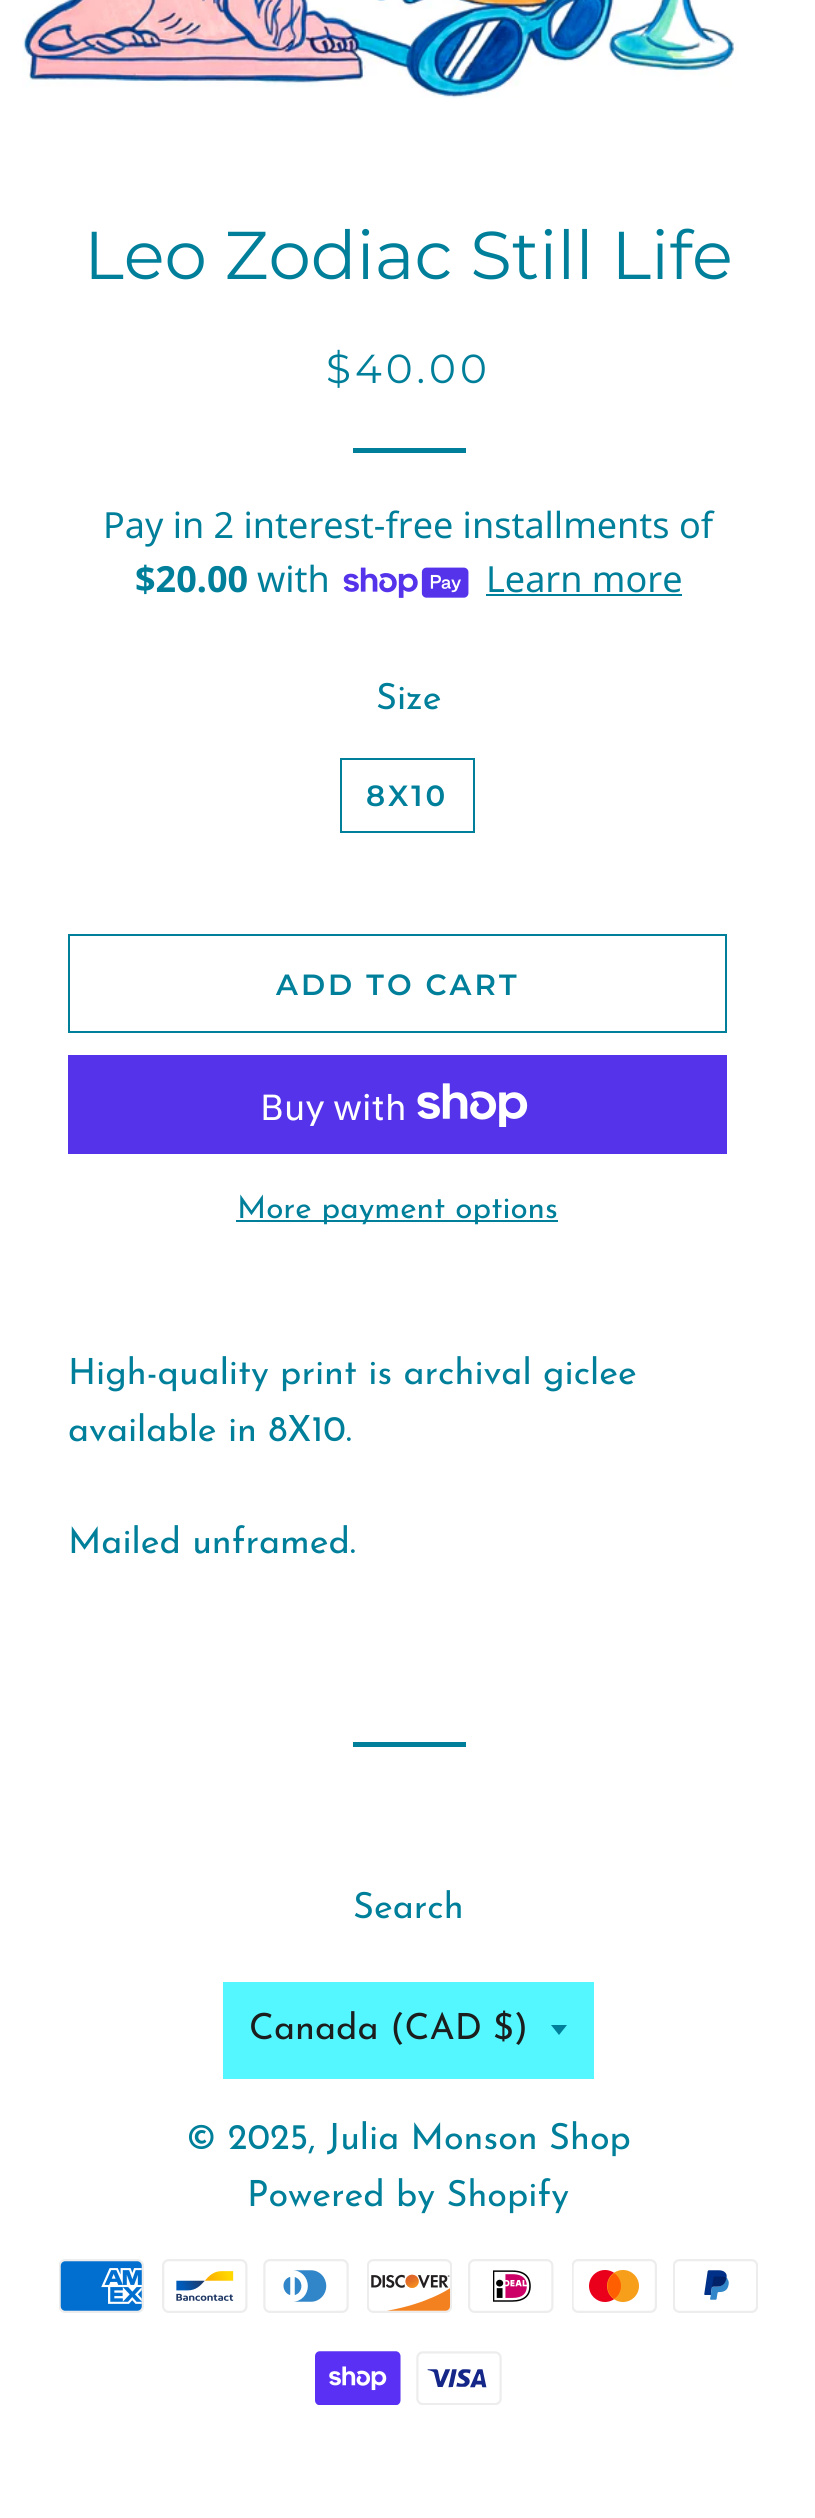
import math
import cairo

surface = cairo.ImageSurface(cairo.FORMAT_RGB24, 815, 2518)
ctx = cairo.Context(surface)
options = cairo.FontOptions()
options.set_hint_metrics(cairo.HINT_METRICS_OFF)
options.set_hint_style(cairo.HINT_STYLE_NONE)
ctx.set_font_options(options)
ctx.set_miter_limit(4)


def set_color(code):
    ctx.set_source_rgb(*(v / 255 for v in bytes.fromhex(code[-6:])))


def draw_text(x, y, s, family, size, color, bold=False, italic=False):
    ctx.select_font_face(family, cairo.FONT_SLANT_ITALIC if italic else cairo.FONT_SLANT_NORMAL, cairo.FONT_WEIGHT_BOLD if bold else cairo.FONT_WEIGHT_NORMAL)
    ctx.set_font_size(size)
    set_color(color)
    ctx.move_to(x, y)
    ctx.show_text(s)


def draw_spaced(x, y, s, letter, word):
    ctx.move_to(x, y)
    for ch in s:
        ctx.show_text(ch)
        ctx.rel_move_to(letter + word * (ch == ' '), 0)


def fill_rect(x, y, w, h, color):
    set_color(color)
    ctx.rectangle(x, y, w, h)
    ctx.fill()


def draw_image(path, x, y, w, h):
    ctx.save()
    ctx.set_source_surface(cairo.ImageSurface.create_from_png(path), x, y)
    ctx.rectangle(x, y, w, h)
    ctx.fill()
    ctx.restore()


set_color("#ffffff")
ctx.paint()
draw_image("assets/img1.png", 22, 0, 717, 99)
draw_text(84, 279, "Leo Zodiac Still Life", "Montserrat", 67.5, "#007f9b")
ctx.set_font_size(40.5)
draw_spaced(326, 383, "$40.00", 4, 0)
fill_rect(353, 448, 113, 5, "#007f9b")
draw_text(103, 538, "Pay in 2 interest-free installments of", "Noto Sans", 36, "#007f9b")
draw_text(135, 592, "$20.00", "Noto Sans", 36, "#007f9b", bold=True)
draw_text(257, 592, "with", "Noto Sans", 36, "#007f9b")
draw_image("assets/img2.png", 343, 567, 126, 31)
draw_text(486, 592, "Learn more", "Noto Sans", 36, "#007f9b")
fill_rect(486, 594, 196, 2, "#007f9b")
draw_text(376, 709, "Size", "Josefin Sans", 36, "#007f9b")
ctx.rectangle(341, 759, 133, 73)
ctx.stroke()
ctx.select_font_face("Montserrat SemiBold")
ctx.set_font_size(29.25)
draw_spaced(366, 806, "8X10", 3, 0)
ctx.rectangle(69, 935, 657, 97)
ctx.stroke()
draw_spaced(276, 995, "ADD TO CART", 3, 0)
fill_rect(68, 1055, 659, 99, "#5433eb")
draw_text(260, 1120, "Buy with", "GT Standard", 36, "#ffffff")
draw_image("assets/img3.png", 417, 1083, 111, 44)
fill_rect(236, 1220, 322, 2, "#007f9b")
draw_text(237, 1218, "More payment options", "Josefin Sans", 31.5, "#007f9b")
draw_text(68, 1384, "High-quality print is archival giclee", "Josefin Sans", 36, "#007f9b")
draw_text(68, 1441, "available in 8X10.", "Josefin Sans", 36, "#007f9b")
draw_text(68, 1553, "Mailed unframed.", "Josefin Sans", 36, "#007f9b")
fill_rect(353, 1742, 113, 5, "#007f9b")
draw_text(353, 1918, "Search", "Josefin Sans", 36, "#007f9b")
fill_rect(223, 1982, 371, 97, "#54f7ff")
set_color("#007f9b")
ctx.new_path()
ctx.move_to(551, 2025)
ctx.line_to(559, 2035)
ctx.line_to(567, 2025)
ctx.close_path()
ctx.fill()
draw_text(249, 2039, "Canada (CAD $)", "Josefin Sans", 36, "#1c1d1d")
draw_text(186, 2149, "© 2025, Julia Monson Shop", "Josefin Sans", 36, "#007f9b")
draw_text(247, 2206, "Powered by Shopify", "Josefin Sans", 36, "#007f9b")
draw_image("assets/img4.png", 59, 2259, 85, 54)
draw_image("assets/img5.png", 162, 2259, 86, 54)
draw_image("assets/img6.png", 263, 2259, 86, 54)
draw_image("assets/img7.png", 367, 2259, 85, 54)
draw_image("assets/img8.png", 468, 2259, 86, 54)
draw_image("assets/img9.png", 572, 2259, 85, 54)
draw_image("assets/img10.png", 673, 2259, 85, 54)
draw_image("assets/img11.png", 315, 2351, 86, 54)
draw_image("assets/img12.png", 416, 2351, 86, 54)
surface.write_to_png("output.png")
